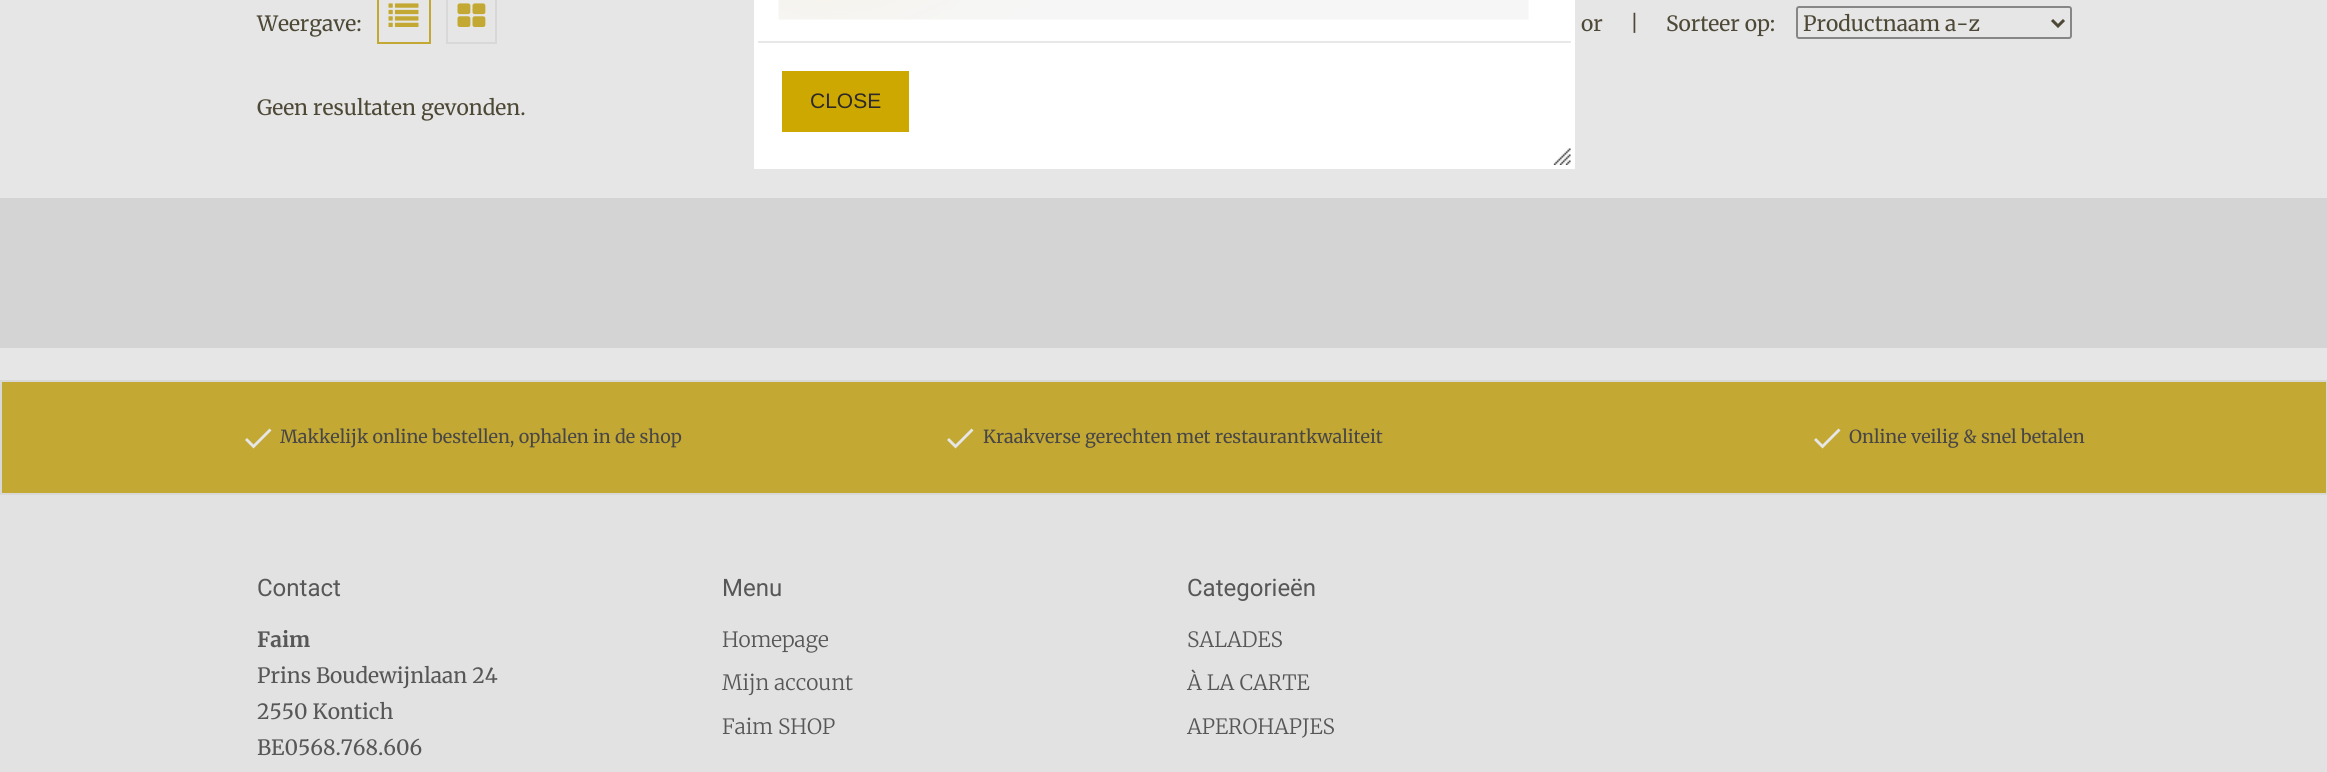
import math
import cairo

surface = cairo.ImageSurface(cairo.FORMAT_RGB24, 2327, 772)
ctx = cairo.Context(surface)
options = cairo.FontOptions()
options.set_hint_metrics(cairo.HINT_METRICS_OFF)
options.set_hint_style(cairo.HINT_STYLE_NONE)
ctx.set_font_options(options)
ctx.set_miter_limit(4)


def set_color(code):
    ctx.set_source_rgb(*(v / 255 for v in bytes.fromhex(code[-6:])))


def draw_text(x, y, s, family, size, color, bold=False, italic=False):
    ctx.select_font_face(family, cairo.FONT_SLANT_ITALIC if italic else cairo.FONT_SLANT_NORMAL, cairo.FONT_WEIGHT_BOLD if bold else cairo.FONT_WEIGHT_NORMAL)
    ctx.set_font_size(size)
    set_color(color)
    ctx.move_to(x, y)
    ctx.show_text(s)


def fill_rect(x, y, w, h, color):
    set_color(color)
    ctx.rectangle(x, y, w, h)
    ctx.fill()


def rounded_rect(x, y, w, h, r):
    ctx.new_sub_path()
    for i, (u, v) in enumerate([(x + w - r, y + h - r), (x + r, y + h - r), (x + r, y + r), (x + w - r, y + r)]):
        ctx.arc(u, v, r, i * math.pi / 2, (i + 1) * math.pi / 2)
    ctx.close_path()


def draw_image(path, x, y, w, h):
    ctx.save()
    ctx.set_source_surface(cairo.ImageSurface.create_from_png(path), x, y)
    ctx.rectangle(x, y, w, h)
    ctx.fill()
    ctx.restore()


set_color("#e6e6e6")
ctx.paint()
draw_text(257, 31, "Weergave:", "Merriweather", 21, "#4e4937")
ctx.rectangle(378, -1, 52, 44)
set_color("#c3a934")
ctx.stroke()
draw_image("assets/img1.png", 388, 3, 31, 24)
ctx.rectangle(447, -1, 49, 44)
set_color("#d8d8d8")
ctx.stroke()
draw_image("assets/img2.png", 457, 3, 29, 24)
draw_text(1581, 31, "or", "Merriweather", 21, "#4e4937")
draw_text(1630, 31, "|", "Merriweather", 21, "#4e4937")
draw_text(1666, 31, "Sorteer op:", "Merriweather", 21, "#4e4937")
rounded_rect(1797, 7, 274, 31, 2)
set_color("#868686")
ctx.stroke()
ctx.new_path()
ctx.move_to(2052, 20)
ctx.line_to(2058, 26)
ctx.line_to(2064, 20)
set_color("#4e4937")
ctx.set_line_width(3)
ctx.stroke()
draw_text(1803, 31, "Productnaam a-z", "Merriweather", 21, "#4e4937")
draw_text(257, 115, "Geen resultaten gevonden.", "Merriweather", 21, "#4e4937")
fill_rect(754, 0, 821, 169, "#ffffff")
draw_image("assets/img3.png", 778, 0, 751, 20)
fill_rect(758, 41, 813, 2, "#e8e8e8")
fill_rect(782, 71, 127, 61, "#cda801")
draw_text(810, 108, "CLOSE", "Liberation Sans", 21, "#2e2929")
draw_image("assets/img4.png", 1553, 148, 18, 17)
fill_rect(0, 198, 2327, 150, "#d4d4d4")
set_color("#c3a934")
ctx.rectangle(1, 381, 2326, 113)
ctx.fill_preserve()
set_color("#d8d8d8")
ctx.set_line_width(2)
ctx.stroke()
set_color("#e6e6e6")
ctx.new_path()
ctx.move_to(253.5, 444.5)
ctx.line_to(269.5, 428.5)
ctx.line_to(271.5, 430.5)
ctx.line_to(253.5, 448.5)
ctx.line_to(245, 440)
ctx.line_to(247, 438)
ctx.close_path()
ctx.fill()
draw_text(280, 443, "Makkelijk online bestellen, ophalen in de shop", "Merriweather", 18, "#494646")
set_color("#e6e6e6")
ctx.new_path()
ctx.move_to(955.5, 444.5)
ctx.line_to(971.5, 428.5)
ctx.line_to(973.5, 430.5)
ctx.line_to(955.5, 448.5)
ctx.line_to(947, 440)
ctx.line_to(949, 438)
ctx.close_path()
ctx.fill()
draw_text(983, 443, "Kraakverse gerechten met restaurantkwaliteit", "Merriweather", 18, "#494646")
set_color("#e6e6e6")
ctx.new_path()
ctx.move_to(1822.5, 444.5)
ctx.line_to(1838.5, 428.5)
ctx.line_to(1840.5, 430.5)
ctx.line_to(1822.5, 448.5)
ctx.line_to(1814, 440)
ctx.line_to(1816, 438)
ctx.close_path()
ctx.fill()
draw_text(1849, 443, "Online veilig & snel betalen", "Merriweather", 18, "#494646")
fill_rect(0, 495, 2327, 277, "#e2e2e2")
draw_text(257, 596, "Contact", "Roboto", 24, "#575757")
draw_text(257, 647, "Faim", "Merriweather", 21, "#575757", bold=True)
draw_text(257, 683, "Prins Boudewijnlaan 24", "Merriweather", 21, "#575757")
draw_text(257, 719, "2550 Kontich", "Merriweather", 21, "#575757")
draw_text(257, 755, "BE0568.768.606", "Merriweather", 21, "#575757")
draw_text(722, 596, "Menu", "Roboto", 24, "#575757")
draw_text(722, 647, "Homepage", "Merriweather Light", 21, "#575757")
draw_text(722, 690, "Mijn account", "Merriweather Light", 21, "#575757")
draw_text(722, 734, "Faim SHOP", "Merriweather Light", 21, "#575757")
draw_text(1187, 596, "Categorieën", "Roboto", 24, "#575757")
draw_text(1187, 647, "SALADES", "Merriweather Light", 21, "#575757")
draw_text(1187, 690, "À LA CARTE", "Merriweather Light", 21, "#575757")
draw_text(1187, 734, "APEROHAPJES", "Merriweather Light", 21, "#575757")
surface.write_to_png("output.png")
